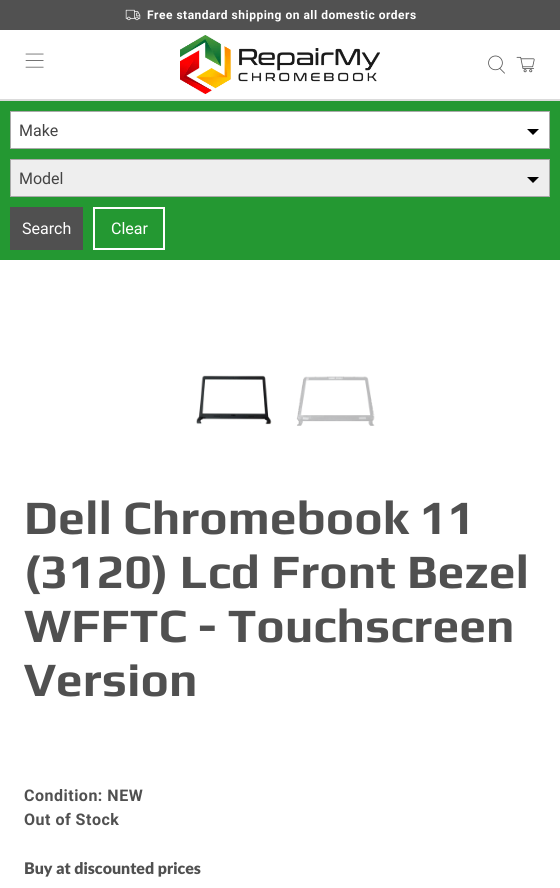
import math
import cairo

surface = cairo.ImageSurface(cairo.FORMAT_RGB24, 560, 888)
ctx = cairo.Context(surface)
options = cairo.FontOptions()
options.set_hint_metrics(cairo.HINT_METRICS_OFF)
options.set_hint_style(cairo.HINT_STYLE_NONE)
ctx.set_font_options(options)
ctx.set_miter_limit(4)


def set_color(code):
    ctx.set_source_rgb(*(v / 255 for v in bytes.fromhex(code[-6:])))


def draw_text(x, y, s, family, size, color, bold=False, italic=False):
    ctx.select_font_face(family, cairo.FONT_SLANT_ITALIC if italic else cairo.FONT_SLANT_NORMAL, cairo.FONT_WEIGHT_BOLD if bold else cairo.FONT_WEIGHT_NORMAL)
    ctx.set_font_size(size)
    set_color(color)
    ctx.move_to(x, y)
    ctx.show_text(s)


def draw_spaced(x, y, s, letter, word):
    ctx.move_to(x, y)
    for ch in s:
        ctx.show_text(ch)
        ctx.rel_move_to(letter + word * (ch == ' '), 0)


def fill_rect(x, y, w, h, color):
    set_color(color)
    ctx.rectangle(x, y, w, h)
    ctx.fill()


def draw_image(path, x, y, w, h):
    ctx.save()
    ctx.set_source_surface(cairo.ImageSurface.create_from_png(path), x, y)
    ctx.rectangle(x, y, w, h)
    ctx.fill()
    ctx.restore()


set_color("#ffffff")
ctx.paint()
fill_rect(0, 0, 560, 30, "#515151")
draw_image("assets/img1.png", 125, 9, 16, 12)
ctx.select_font_face("Roboto", cairo.FONT_SLANT_NORMAL, cairo.FONT_WEIGHT_BOLD)
ctx.set_font_size(12)
set_color("#ffffff")
draw_spaced(147, 19, "Free standard shipping on all domestic orders", 0.5, 0)
fill_rect(0, 99, 560, 2, "#dbdbdb")
draw_image("assets/img2.png", 25, 53, 19, 15)
draw_image("assets/img3.png", 180, 35, 200, 59)
draw_image("assets/img4.png", 488, 55, 17, 19)
draw_image("assets/img5.png", 516, 56, 19, 17)
fill_rect(0, 101, 560, 159, "#249832")
set_color("#ffffff")
ctx.rectangle(10.5, 111.5, 539, 37)
ctx.fill_preserve()
set_color("#aaaaaa")
ctx.set_line_width(1)
ctx.stroke()
draw_text(19, 136, "Make", "Roboto", 16, "#444444")
set_color("#000000")
ctx.new_path()
ctx.move_to(527, 129)
ctx.line_to(539, 129)
ctx.line_to(533, 135)
ctx.close_path()
ctx.fill()
set_color("#eeeeee")
ctx.rectangle(10.5, 159.5, 539, 37)
ctx.fill_preserve()
set_color("#aaaaaa")
ctx.stroke()
draw_text(19, 184, "Model", "Roboto", 16, "#444444")
set_color("#000000")
ctx.new_path()
ctx.move_to(527, 177)
ctx.line_to(539, 177)
ctx.line_to(533, 183)
ctx.close_path()
ctx.fill()
fill_rect(10, 207, 73, 43, "#505050")
draw_text(22, 234, "Search", "Roboto", 16, "#ffffff")
ctx.rectangle(94, 208, 70, 41)
ctx.set_line_width(2)
ctx.stroke()
draw_text(111, 234, "Clear", "Roboto", 16, "#ffffff")
draw_image("assets/img6.png", 196, 375, 76, 50)
draw_image("assets/img7.png", 296, 376, 79, 50)
draw_text(24, 534, "Dell Chromebook 11", "Play", 48, "#505050", bold=True)
draw_text(24, 588, "(3120) Lcd Front Bezel", "Play", 48, "#505050", bold=True)
draw_text(24, 642, "WFFTC - Touchscreen", "Play", 48, "#505050", bold=True)
draw_text(24, 696, "Version", "Play", 48, "#505050", bold=True)
ctx.select_font_face("Roboto", cairo.FONT_SLANT_NORMAL, cairo.FONT_WEIGHT_BOLD)
ctx.set_font_size(16)
draw_spaced(24, 801, "Condition: NEW", 0.5, 0)
draw_spaced(24, 825, "Out of Stock", 0.5, 0)
draw_text(24, 874, "Buy at discounted prices", "Lato ExtraBold", 16, "#505050")
surface.write_to_png("output.png")
